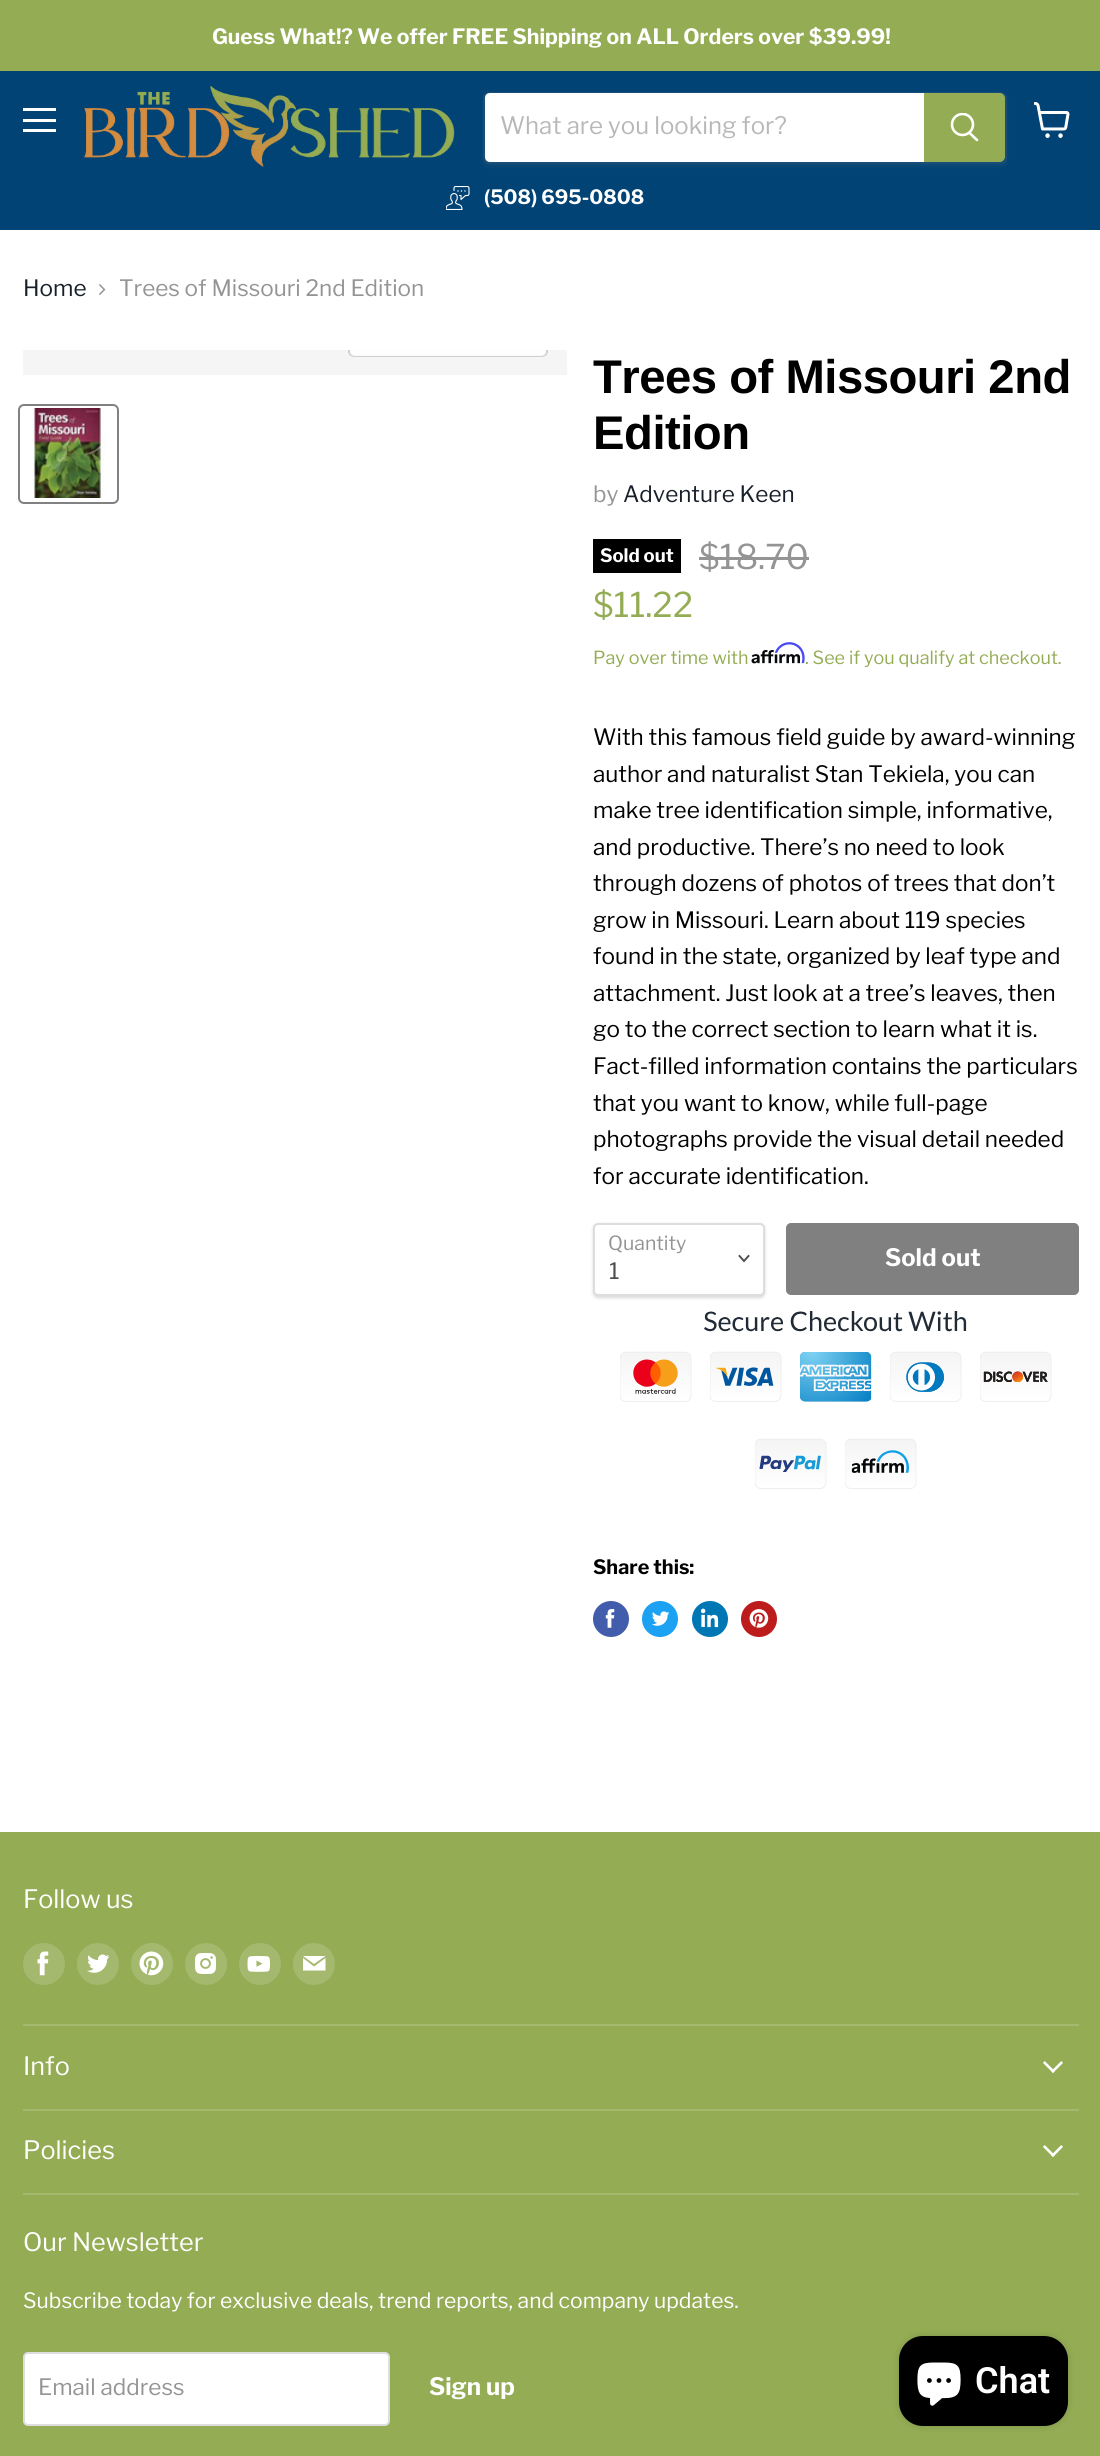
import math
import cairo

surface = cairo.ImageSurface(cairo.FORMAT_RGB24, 1100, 2456)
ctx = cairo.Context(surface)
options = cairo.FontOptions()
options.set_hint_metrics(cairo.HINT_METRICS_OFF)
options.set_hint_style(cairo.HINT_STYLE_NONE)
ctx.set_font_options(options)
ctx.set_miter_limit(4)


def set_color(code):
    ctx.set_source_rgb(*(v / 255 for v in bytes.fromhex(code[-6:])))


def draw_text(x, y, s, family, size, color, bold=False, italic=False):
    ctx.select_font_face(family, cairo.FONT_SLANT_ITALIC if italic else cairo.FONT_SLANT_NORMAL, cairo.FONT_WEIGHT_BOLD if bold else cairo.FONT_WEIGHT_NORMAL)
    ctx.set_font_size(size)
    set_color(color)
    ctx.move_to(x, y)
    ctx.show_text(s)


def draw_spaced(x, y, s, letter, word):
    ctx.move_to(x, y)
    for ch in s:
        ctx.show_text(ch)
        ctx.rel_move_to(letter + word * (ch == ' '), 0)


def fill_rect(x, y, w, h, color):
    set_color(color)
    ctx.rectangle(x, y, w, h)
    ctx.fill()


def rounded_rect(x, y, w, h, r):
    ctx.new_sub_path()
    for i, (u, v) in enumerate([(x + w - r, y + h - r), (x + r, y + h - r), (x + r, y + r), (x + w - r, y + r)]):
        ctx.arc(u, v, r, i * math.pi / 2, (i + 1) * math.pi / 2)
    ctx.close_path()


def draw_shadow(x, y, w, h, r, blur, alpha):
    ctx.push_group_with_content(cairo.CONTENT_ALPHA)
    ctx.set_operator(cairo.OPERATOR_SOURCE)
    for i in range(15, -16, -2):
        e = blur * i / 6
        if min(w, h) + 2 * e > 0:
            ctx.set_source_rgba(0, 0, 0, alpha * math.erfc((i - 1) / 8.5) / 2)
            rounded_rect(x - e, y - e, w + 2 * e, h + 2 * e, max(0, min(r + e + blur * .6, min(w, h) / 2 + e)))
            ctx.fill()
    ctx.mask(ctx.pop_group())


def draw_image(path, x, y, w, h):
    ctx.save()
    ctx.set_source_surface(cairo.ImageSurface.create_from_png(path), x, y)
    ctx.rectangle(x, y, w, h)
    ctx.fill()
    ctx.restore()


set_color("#ffffff")
ctx.paint()
fill_rect(0, 0, 1100, 71, "#94ac54")
draw_text(212, 44, "Guess What!? We offer FREE Shipping on ALL Orders over $39.99!", "Libre Franklin", 21.1, "#ffffff", bold=True)
fill_rect(0, 71, 1100, 159, "#004374")
fill_rect(23, 108, 33, 3, "#ffffff")
fill_rect(23, 119, 33, 3, "#ffffff")
fill_rect(23, 129, 33, 3, "#ffffff")
draw_image("assets/img1.png", 84, 86, 371, 81)
ctx.save()
ctx.set_fill_rule(cairo.FILL_RULE_EVEN_ODD)
ctx.new_path()
ctx.move_to(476, 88)
ctx.line_to(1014, 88)
ctx.line_to(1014, 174)
ctx.line_to(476, 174)
ctx.close_path()
ctx.move_to(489, 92)
ctx.line_to(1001, 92)
ctx.curve_to(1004.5, 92, 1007, 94.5, 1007, 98)
ctx.line_to(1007, 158)
ctx.curve_to(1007, 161.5, 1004.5, 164, 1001, 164)
ctx.line_to(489, 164)
ctx.curve_to(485.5, 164, 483, 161.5, 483, 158)
ctx.line_to(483, 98)
ctx.curve_to(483, 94.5, 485.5, 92, 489, 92)
ctx.close_path()
ctx.clip()
set_color("#808080")
draw_shadow(483, 95, 524, 72, 6, 2, 0.11)
ctx.restore()
rounded_rect(484, 93, 522, 70, 5)
ctx.set_source_rgba(0.502, 0.502, 0.502, 0.2)
ctx.stroke()
set_color("#ffffff")
ctx.new_path()
ctx.move_to(490, 93)
ctx.line_to(924, 93)
ctx.line_to(924, 162)
ctx.line_to(490, 162)
ctx.curve_to(487, 162, 485, 160, 485, 157)
ctx.line_to(485, 98)
ctx.curve_to(485, 95, 487, 93, 490, 93)
ctx.close_path()
ctx.fill()
draw_text(500, 134, "What are you looking for?", "Libre Franklin", 24, "#b8b8b8")
set_color("#94ac54")
ctx.new_path()
ctx.move_to(925, 94)
ctx.line_to(1000, 94)
ctx.curve_to(1002, 94, 1004, 96, 1004, 98)
ctx.line_to(1004, 157)
ctx.curve_to(1004, 159, 1002, 161, 1000, 161)
ctx.line_to(925, 161)
ctx.close_path()
ctx.fill_preserve()
ctx.stroke()
ctx.new_path()
ctx.move_to(977, 140)
ctx.line_to(969.5, 133)
set_color("#ffffff")
ctx.set_line_width(2.6)
ctx.set_line_cap(cairo.LINE_CAP_ROUND)
ctx.stroke()
ctx.save()
ctx.rectangle(950, 113, 30, 31)
ctx.clip()
ctx.arc(962.5, 124.5, 10.5, 0, 2 * math.pi)
ctx.set_line_cap(cairo.LINE_CAP_BUTT)
ctx.stroke()
ctx.restore()
draw_image("assets/img2.png", 446, 186, 24, 24)
draw_text(484, 204, "(508) 695-0808", "Libre Franklin", 19.75, "#ffffff", bold=True)
draw_image("assets/img3.png", 1034, 102, 36, 36)
draw_text(23, 296, "Home", "Libre Franklin", 22.5, "#171f2b")
draw_image("assets/img4.png", 99, 284, 7, 11)
draw_text(119, 296, "Trees of Missouri 2nd Edition", "Libre Franklin", 22.5, "#949494")
fill_rect(23, 350, 544, 25, "#f5f5f5")
ctx.save()
ctx.rectangle(23, 350, 544, 25)
ctx.clip()
rounded_rect(349, 315, 198, 41, 5)
set_color("#d0d0d0")
ctx.set_line_width(2)
ctx.set_line_cap(cairo.LINE_CAP_BUTT)
ctx.stroke()
ctx.restore()
ctx.set_source_rgba(1, 1, 1, 0.9)
ctx.new_path()
ctx.move_to(350, 350)
ctx.line_to(546, 350)
ctx.line_to(546, 351)
ctx.curve_to(546, 354, 544, 356, 541, 356)
ctx.line_to(355, 356)
ctx.curve_to(352, 356, 350, 354, 350, 351)
ctx.close_path()
ctx.fill()
rounded_rect(19, 405, 99, 98, 5)
set_color("#818181")
ctx.set_line_width(2)
ctx.set_line_cap(cairo.LINE_CAP_BUTT)
ctx.stroke()
draw_image("assets/img5.png", 32, 408, 75, 90)
ctx.select_font_face("Arimo", cairo.FONT_SLANT_NORMAL, cairo.FONT_WEIGHT_BOLD)
ctx.set_font_size(47.25)
set_color("#000000")
draw_spaced(593, 393, "Trees of Missouri 2nd", -0.5, 0)
draw_spaced(593, 449, "Edition", -0.5, 0)
draw_text(593, 502, "by", "Libre Franklin", 22.5, "#949494")
draw_text(623, 502, "Adventure Keen", "Libre Franklin", 22.5, "#171f2b")
draw_text(699, 569, "$18.70", "Libre Franklin", 34, "#949494")
fill_rect(699, 557, 110, 3, "#949494")
draw_text(593, 617, "$11.22", "Libre Franklin", 34, "#94ac54")
draw_text(593, 664, "Pay over time with", "Libre Franklin", 18, "#94ac54")
draw_image("assets/img7.png", 751, 650, 49, 14)
draw_image("assets/img6.png", 774, 642, 31, 22)
draw_text(805, 664, ". See if you qualify at checkout.", "Libre Franklin", 18, "#94ac54")
fill_rect(593, 539, 88, 34, "#000000")
draw_text(600, 562, "Sold out", "Libre Franklin", 18.5, "#ffffff", bold=True)
draw_text(593, 745, "With this famous field guide by award-winning", "Libre Franklin", 22.5, "#000000")
draw_text(593, 782, "author and naturalist Stan Tekiela, you can", "Libre Franklin", 22.5, "#000000")
draw_text(593, 818, "make tree identification simple, informative,", "Libre Franklin", 22.5, "#000000")
draw_text(593, 855, "and productive. There’s no need to look", "Libre Franklin", 22.5, "#000000")
draw_text(593, 891, "through dozens of photos of trees that don’t", "Libre Franklin", 22.5, "#000000")
draw_text(593, 928, "grow in Missouri. Learn about 119 species", "Libre Franklin", 22.5, "#000000")
draw_text(593, 964, "found in the state, organized by leaf type and", "Libre Franklin", 22.5, "#000000")
draw_text(593, 1001, "attachment. Just look at a tree’s leaves, then", "Libre Franklin", 22.5, "#000000")
draw_text(593, 1037, "go to the correct section to learn what it is.", "Libre Franklin", 22.5, "#000000")
draw_text(593, 1074, "Fact-filled information contains the particulars", "Libre Franklin", 22.5, "#000000")
draw_text(593, 1111, "that you want to know, while full-page", "Libre Franklin", 22.5, "#000000")
draw_text(593, 1147, "photographs provide the visual detail needed", "Libre Franklin", 22.5, "#000000")
draw_text(593, 1184, "for accurate identification.", "Libre Franklin", 22.5, "#000000")
set_color("#000000")
draw_shadow(593, 1224, 172, 74, 5, 1.5, 0.15)
set_color("#ffffff")
rounded_rect(594, 1224, 170, 71, 4)
ctx.fill_preserve()
set_color("#dddddd")
ctx.stroke()
draw_text(608, 1250, "Quantity", "Libre Franklin", 19.5, "#949494")
ctx.new_path()
ctx.move_to(744, 1261)
ctx.line_to(748.5, 1256)
ctx.move_to(744, 1261)
ctx.line_to(739.5, 1256)
set_color("#4d4d4d")
ctx.set_line_width(1.9)
ctx.set_line_cap(cairo.LINE_CAP_SQUARE)
ctx.stroke()
draw_text(609, 1279, "1", "Libre Franklin", 22.5, "#4d4d4d")
set_color("#808080")
rounded_rect(787, 1224, 291, 70, 4)
ctx.fill_preserve()
ctx.set_line_width(2)
ctx.set_line_cap(cairo.LINE_CAP_BUTT)
ctx.stroke()
draw_text(885, 1266, "Sold out", "Libre Franklin", 24, "#ffffff", bold=True)
draw_image("assets/img8.png", 620, 1311, 432, 178)
draw_text(593, 1574, "Share this:", "Libre Franklin", 19.75, "#000000", bold=True)
set_color("#425dab")
ctx.new_path()
ctx.arc(611, 1619, 18, 0, 2 * math.pi)
ctx.fill()
draw_image("assets/img9.png", 605, 1609, 10, 19)
set_color("#1da1f2")
ctx.arc(660, 1619, 18, 0, 2 * math.pi)
ctx.fill()
draw_image("assets/img10.png", 651, 1611, 19, 15)
set_color("#0077b5")
ctx.arc(710, 1619, 18, 0, 2 * math.pi)
ctx.fill()
draw_image("assets/img11.png", 701, 1608, 18, 20)
set_color("#bd1c1c")
ctx.arc(759, 1619, 18, 0, 2 * math.pi)
ctx.fill()
draw_image("assets/img12.png", 749, 1609, 20, 19)
fill_rect(0, 1832, 1100, 624, "#94ac54")
fill_rect(23, 2024, 1056, 2, "#a4b86e")
draw_text(23, 1908, "Follow us", "Libre Franklin", 25.25, "#ffffff")
set_color("#a4b86e")
ctx.new_path()
ctx.arc(44, 1964, 21, 0, 2 * math.pi)
ctx.fill()
draw_image("assets/img13.png", 37, 1951, 12, 25)
ctx.arc(98, 1964, 21, 0, 2 * math.pi)
ctx.fill()
draw_image("assets/img14.png", 87, 1954, 23, 19)
ctx.arc(152, 1964, 21, 0, 2 * math.pi)
ctx.fill()
draw_image("assets/img15.png", 139, 1951, 25, 25)
ctx.arc(206, 1964, 21, 0, 2 * math.pi)
ctx.fill()
draw_image("assets/img16.png", 195, 1953, 21, 21)
ctx.arc(260, 1964, 21, 0, 2 * math.pi)
ctx.fill()
draw_image("assets/img17.png", 247, 1956, 23, 16)
ctx.arc(314, 1964, 21, 0, 2 * math.pi)
ctx.fill()
set_color("#ffffff")
ctx.set_fill_rule(cairo.FILL_RULE_EVEN_ODD)
ctx.new_path()
ctx.move_to(325.5, 1956)
ctx.line_to(303, 1956)
ctx.line_to(314, 1964)
ctx.close_path()
ctx.move_to(314, 1966.5)
ctx.line_to(303, 1958)
ctx.line_to(303, 1970.5)
ctx.line_to(325.5, 1970.5)
ctx.line_to(325.5, 1958)
ctx.close_path()
ctx.fill()
fill_rect(23, 2109, 1056, 2, "#a4b86e")
draw_text(23, 2075, "Info", "Libre Franklin", 25.25, "#ffffff")
draw_image("assets/img18.png", 1043, 2061, 20, 12)
fill_rect(23, 2193, 1056, 2, "#a4b86e")
draw_text(23, 2159, "Policies", "Libre Franklin", 25.25, "#ffffff")
draw_image("assets/img18.png", 1043, 2145, 20, 12)
draw_text(23, 2251, "Our Newsletter", "Libre Franklin", 25.25, "#ffffff")
draw_text(23, 2308, "Subscribe today for exclusive deals, trend reports, and company updates.", "Libre Franklin", 21.1, "#ffffff")
rounded_rect(24, 2353, 365, 72, 4)
ctx.fill_preserve()
set_color("#dddddd")
ctx.stroke()
draw_text(38, 2395, "Email address", "Libre Franklin", 22.5, "#949494")
draw_text(429, 2395, "Sign up", "Libre Franklin", 24, "#ffffff", bold=True)
set_color("#000000")
draw_shadow(899, 2336, 169, 90, 24, 4, 0.15)
set_color("#000000")
rounded_rect(899, 2336, 169, 90, 24)
ctx.fill()
draw_image("assets/img19.png", 917, 2362, 44, 44)
draw_text(975, 2393, "Chat", "Roboto SemiBold", 36, "#ffffff")
surface.write_to_png("output.png")
